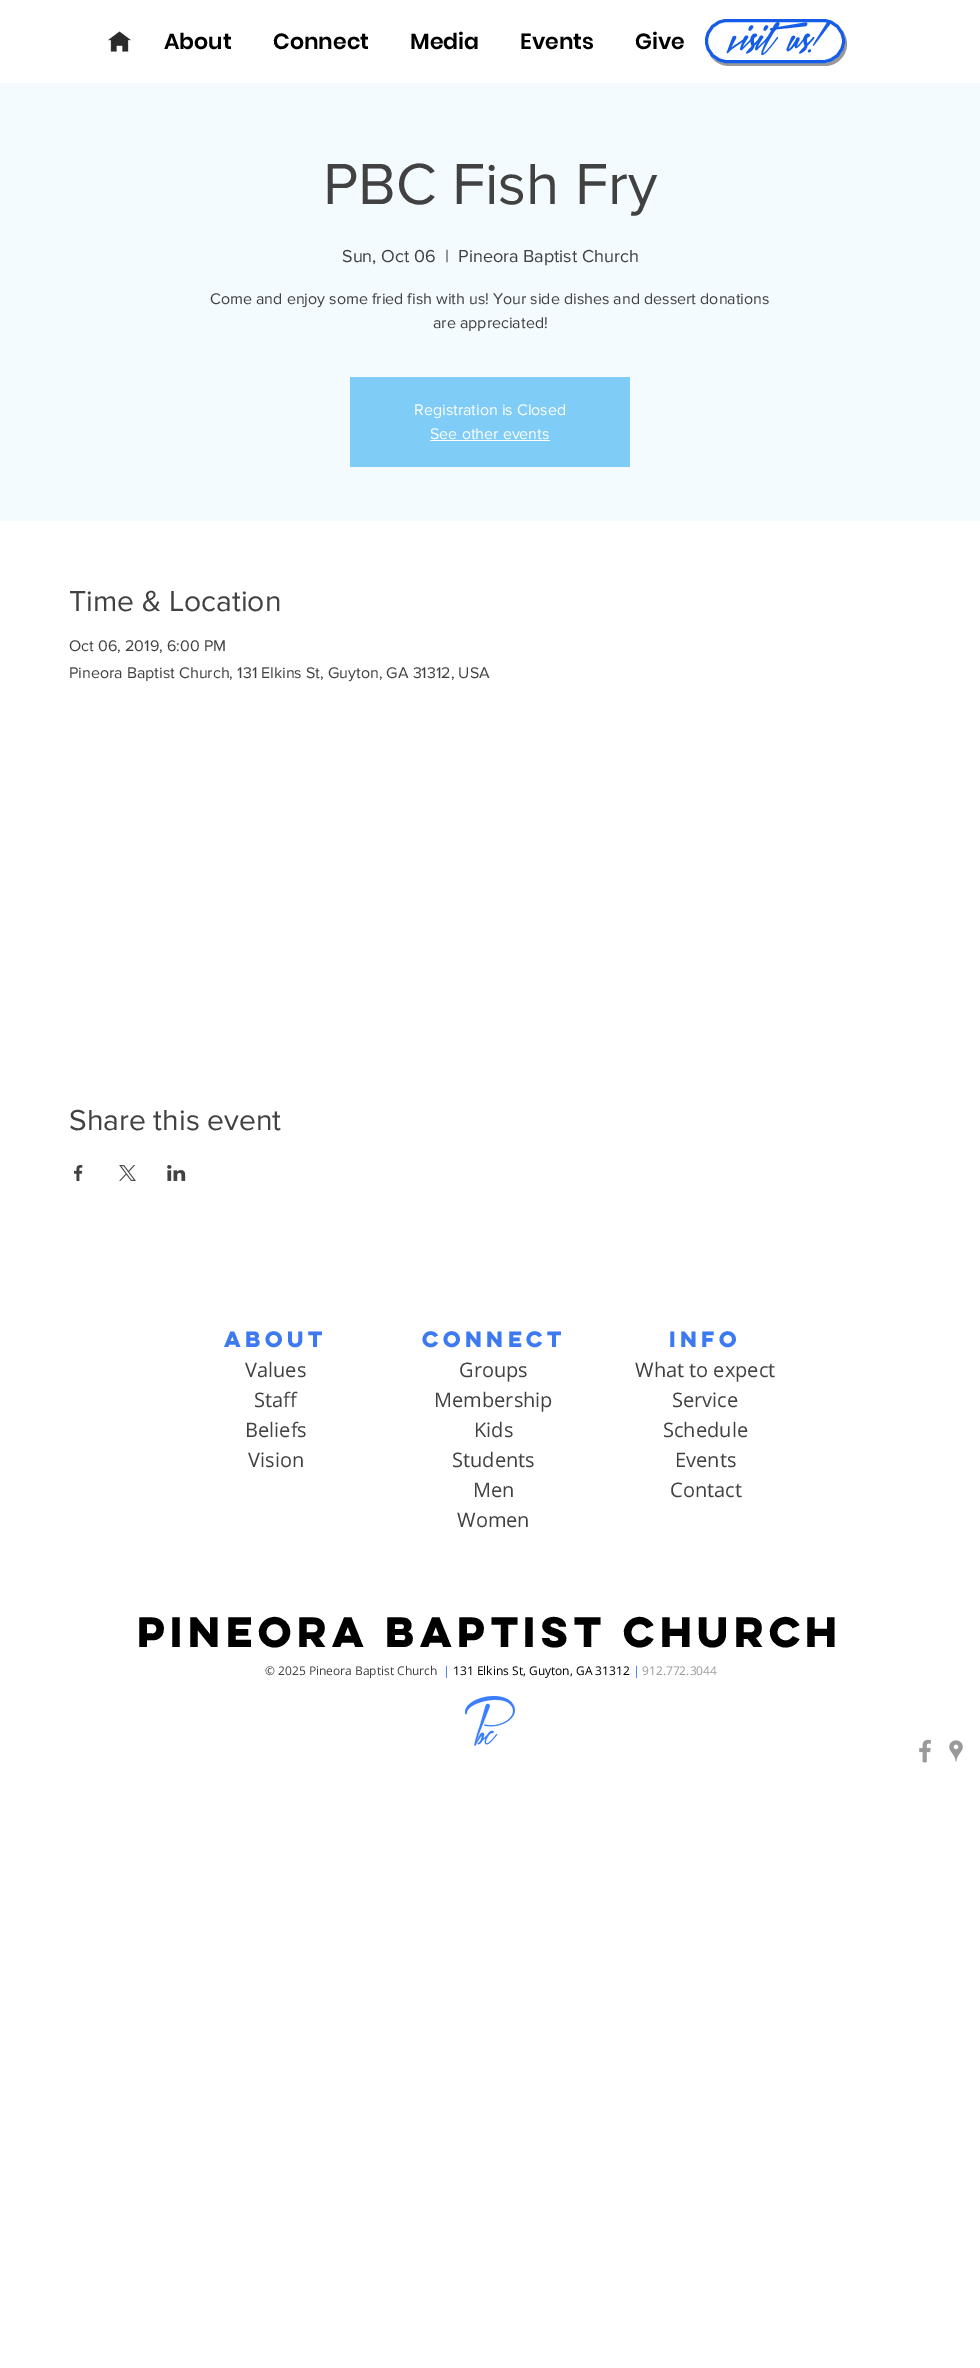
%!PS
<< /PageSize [980 2368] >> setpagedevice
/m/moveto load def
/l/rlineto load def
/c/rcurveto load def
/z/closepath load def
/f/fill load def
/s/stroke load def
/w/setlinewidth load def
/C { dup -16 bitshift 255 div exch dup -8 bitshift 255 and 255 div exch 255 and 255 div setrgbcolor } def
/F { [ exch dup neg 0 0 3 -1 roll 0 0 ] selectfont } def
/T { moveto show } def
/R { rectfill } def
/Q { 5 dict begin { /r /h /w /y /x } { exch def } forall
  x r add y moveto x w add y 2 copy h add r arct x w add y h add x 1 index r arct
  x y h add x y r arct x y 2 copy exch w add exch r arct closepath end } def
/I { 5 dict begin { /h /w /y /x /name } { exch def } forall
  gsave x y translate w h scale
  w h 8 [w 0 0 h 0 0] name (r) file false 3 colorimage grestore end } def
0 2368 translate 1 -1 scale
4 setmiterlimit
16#FFFFFF C
0 0 980 2368 R
(1.rgb) 108 31 23 21 I
/Poppins-SemiBold 22 F
16#000000 C
(About) 164 49 T
(Connect) 273 49 T
(Media) 410 49 T
(Events) 520 49 T
(Give) 635 49 T
16#999997 C
710 55 m 3 6 11 11 19 11 c 96 0 l 12 0 22 -10 22 -22 c 0 -5 -2 -10 -5 -14 c 2 4 3 7 3 11 c 0 12 -10 22 -22 22 c -96 0 l -7 0 -13 -3 -17 -8 c z f
16#155DE9 C
3 w
706.5 20.5 137 41 20.5 Q s
/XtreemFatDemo-Italic 32 F
(visit us!) 731 49 T
16#F3FBFF C
0 83 980 438 R
/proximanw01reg-Regular 60 F
16#414141 C
(PBC Fish Fry) 323 204 T
/proximanw01reg-Regular 18 F
(Sun, Oct 06) 342 262 T
(|) 445 262 T
(Pineora Baptist Church) 458 262 T
/proximanw01reg-Regular 16 F
(Come and enjoy some fried fish with us! Your side dishes and dessert donations) 210 304 T
(are appreciated!) 433 328 T
16#7FCCF7 C
350 377 280 90 R
16#FFFFFF C
(Registration is Closed) 414 415 T
(See other events) 430 439 T
430 440 120 1 R
/proximanw01reg-Regular 30 F
16#414141 C
(Time & Location) 69 611 T
/proximanw01reg-Regular 16 F
(Oct 06, 2019, 6:00 PM) 69 651 T
(Pineora Baptist Church, 131 Elkins St, Guyton, GA 31312, USA) 69 678 T
/proximanw01reg-Regular 30 F
(Share this event) 69 1130 T
(2.rgb) 74 1165 9 16 I
(3.rgb) 119 1165 17 16 I
(4.rgb) 167 1165 19 16 I
/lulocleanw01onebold-Bold 20 F
16#3D7AF2 C
(About) 224 1347 T
/OpenSans-Regular 20 F
16#414141 C
(Values) 245 1377 T
(Staff) 254 1407 T
(Beliefs) 245 1437 T
(Vision) 248 1467 T
/lulocleanw01onebold-Bold 20 F
16#3D7AF2 C
(Connect) 422 1347 T
/OpenSans-Regular 20 F
16#414141 C
(Groups) 459 1377 T
(Membership) 434 1407 T
(Kids) 474 1437 T
(Students) 452 1467 T
(Men) 473 1497 T
(Women) 457 1527 T
/lulocleanw01onebold-Bold 20 F
16#3D7AF2 C
(Info) 669 1347 T
/OpenSans-Regular 20 F
16#414141 C
(What to expect) 635 1377 T
(Service) 672 1407 T
(Schedule) 663 1437 T
(Events) 675 1467 T
(Contact) 670 1497 T
/lulocleanw01onebold-Bold 38 F
16#000000 C
137 1647 m -3 0 (PINEORA BAPTIST CHURCH) ashow
/OpenSans-Regular 12 F
16#414141 C
(© 2025 Pineora Baptist Church) 265 1675 T
16#155DE9 C
(|) 443 1675 T
16#000000 C
(131 Elkins St, Guyton, GA 31312) 453 1675 T
16#155DE9 C
(|) 633 1675 T
16#999997 C
(912.772.3044) 642 1675 T
(5.rgb) 465 1696 50 50 I
(6.rgb) 919 1739 12 24 I
(7.rgb) 949 1740 14 22 I
showpage
